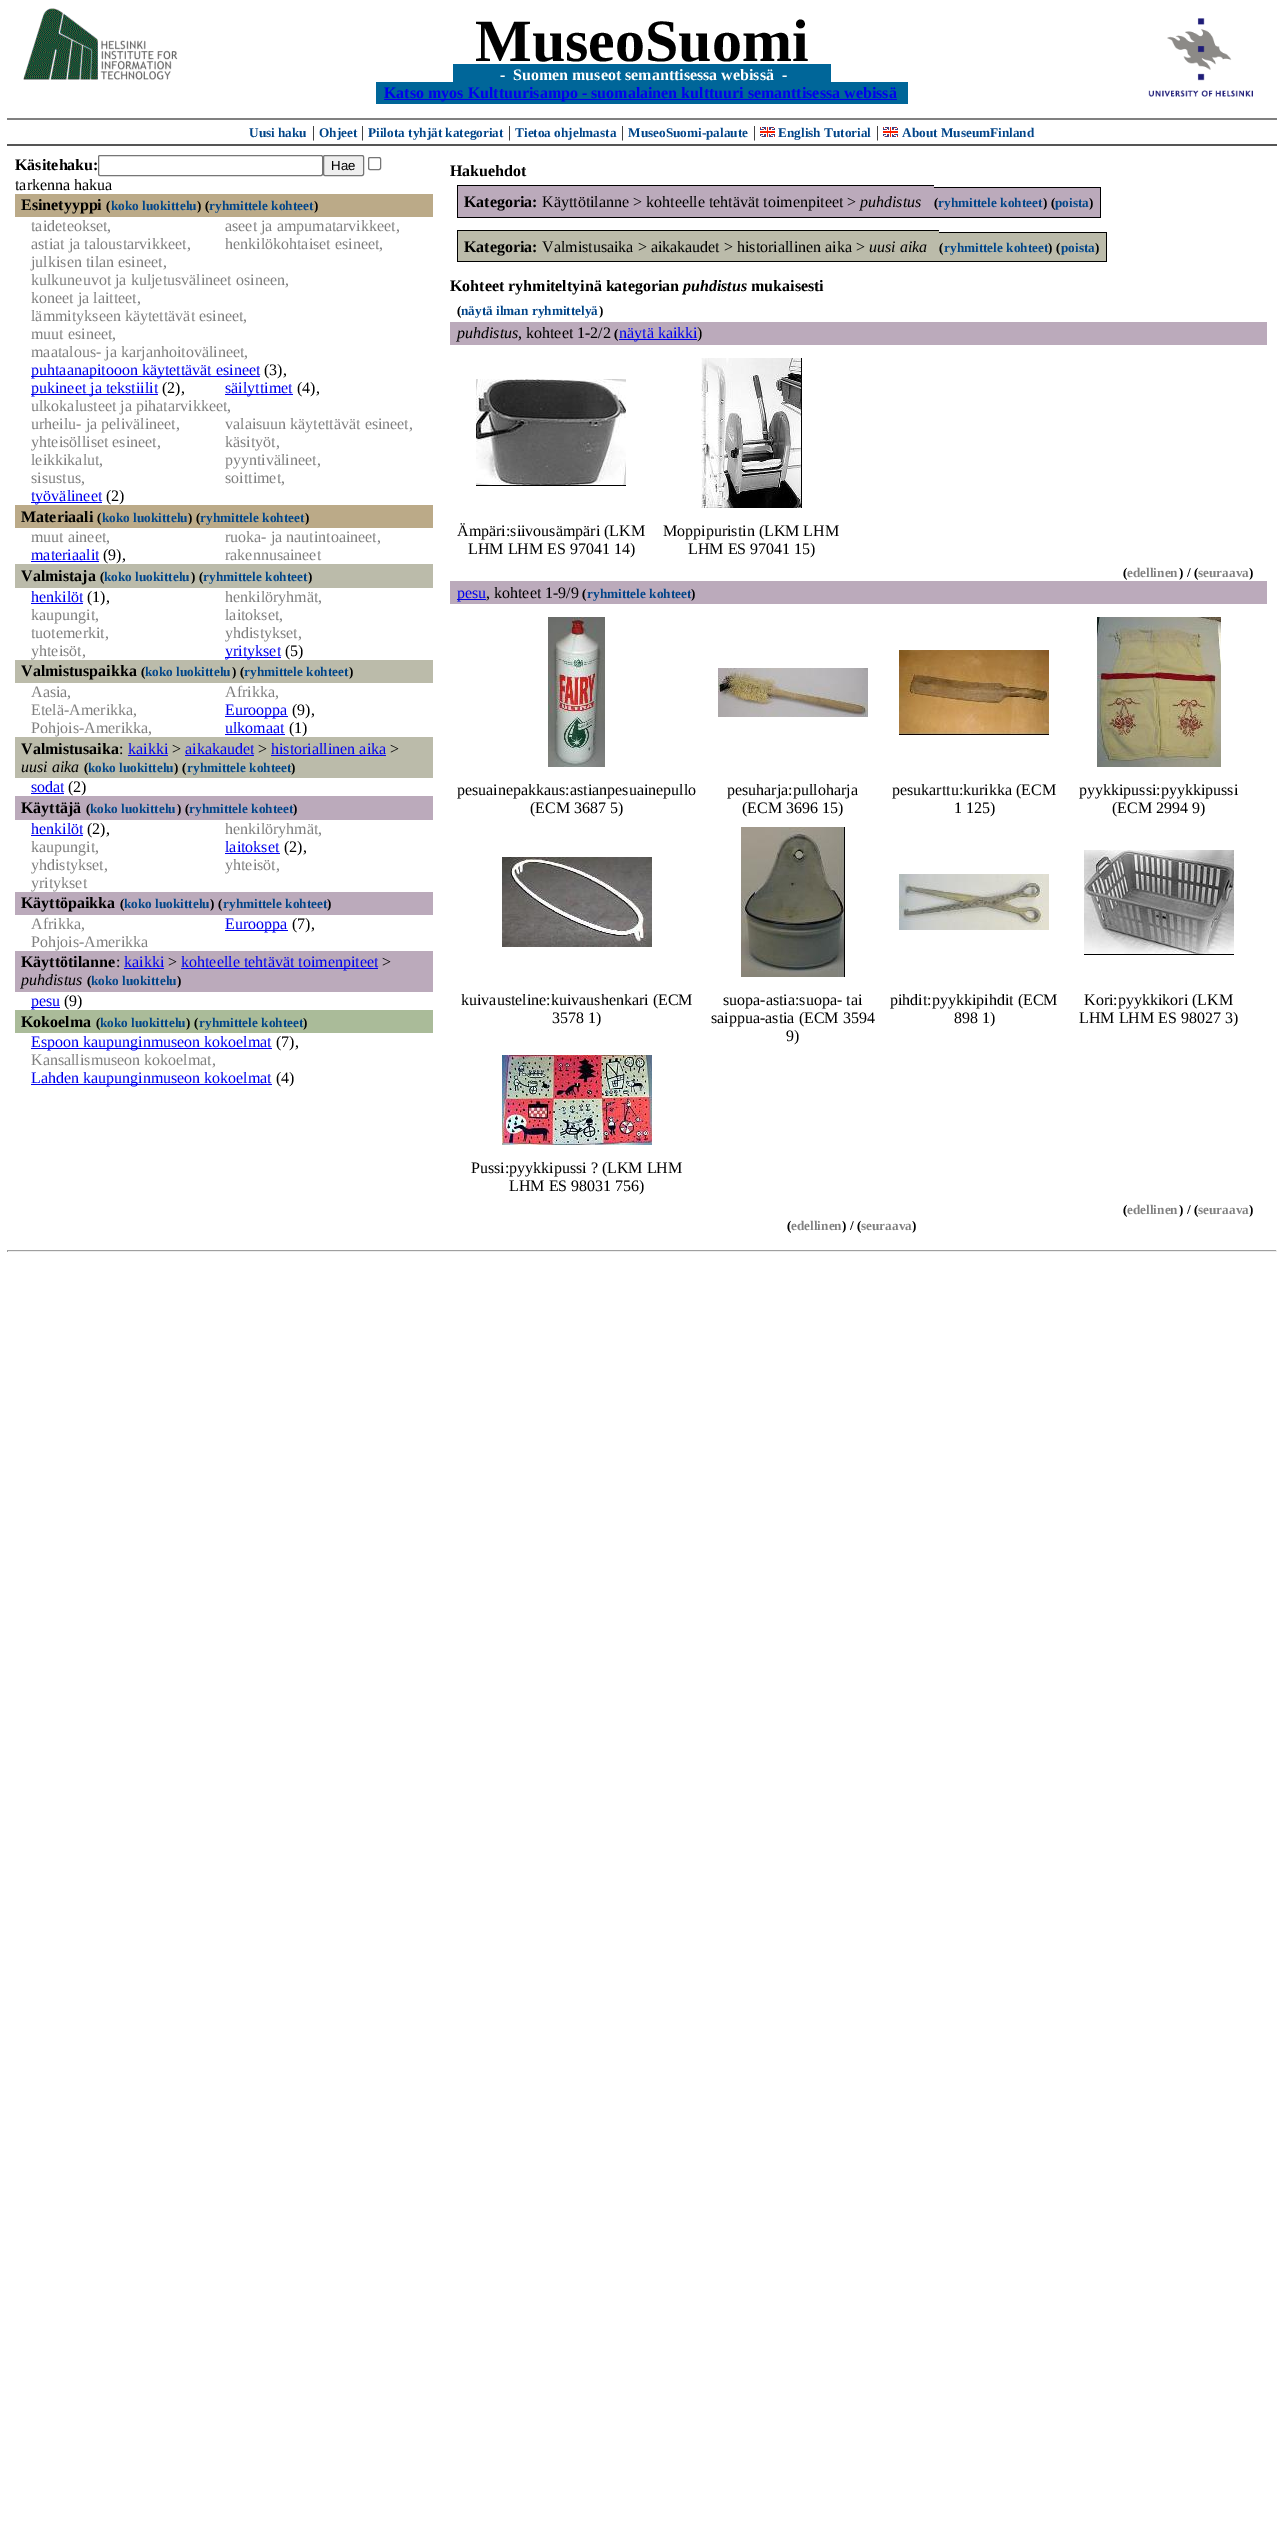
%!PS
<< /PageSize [1284 2529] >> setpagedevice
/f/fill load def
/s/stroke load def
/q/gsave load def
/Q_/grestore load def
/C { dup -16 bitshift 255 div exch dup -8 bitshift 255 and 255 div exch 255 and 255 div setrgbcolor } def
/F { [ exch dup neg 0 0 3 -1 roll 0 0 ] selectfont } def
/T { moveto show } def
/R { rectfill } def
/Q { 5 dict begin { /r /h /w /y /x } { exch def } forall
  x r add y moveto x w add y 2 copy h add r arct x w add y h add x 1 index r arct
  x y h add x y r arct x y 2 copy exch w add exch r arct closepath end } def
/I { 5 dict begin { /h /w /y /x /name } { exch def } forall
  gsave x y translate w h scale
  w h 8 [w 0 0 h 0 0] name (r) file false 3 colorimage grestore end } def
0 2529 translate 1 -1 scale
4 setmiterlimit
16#FFFFFF C
0 0 1284 2529 R
(1.rgb) 23 8 155 72 I
/LiberationSerif-Bold 60 F
16#000000 C
(MuseoSuomi) 475 61 T
(2.rgb) 1148 18 105 79 I
16#006699 C
453 64 378 18 R
/LiberationSerif-Bold 16 F
16#FFFFFF C
(-) 500 80 T
(Suomen museot semanttisessa webissä) 513 80 T
(-) 782 80 T
16#006699 C
376 82 532 22 R
16#0000EE C
384 99 513 1 R
(Katso myos Kulttuurisampo - suomalainen kulttuuri semanttisessa webissä) 384 98 T
16#808080 C
7 118 1270 2 R
16#555555 C
7 144 1270 2 R
/LiberationSerif-Bold 13.25 F
16#004488 C
(Uusi haku) 249 137 T
/LiberationSerif-Regular 16 F
16#000000 C
(|) 312 137 T
/LiberationSerif-Bold 13.25 F
16#004488 C
(Ohjeet) 319 137 T
/LiberationSerif-Regular 16 F
16#000000 C
(|) 361 137 T
/LiberationSerif-Bold 13.25 F
16#004488 C
(Piilota tyhjät kategoriat) 368 137 T
/LiberationSerif-Regular 16 F
16#000000 C
(|) 508 137 T
/LiberationSerif-Bold 13.25 F
16#004488 C
(Tietoa ohjelmasta) 515 137 T
/LiberationSerif-Regular 16 F
16#000000 C
(|) 621 137 T
/LiberationSerif-Bold 13.25 F
16#004488 C
(MuseoSuomi-palaute) 628 137 T
/LiberationSerif-Regular 16 F
16#000000 C
(|) 753 137 T
(3.rgb) 760 127 15 10 I
/LiberationSerif-Bold 13.25 F
16#004488 C
(English Tutorial) 778 137 T
/LiberationSerif-Regular 16 F
16#000000 C
(|) 876 137 T
(3.rgb) 883 127 15 10 I
/LiberationSerif-Bold 13.25 F
16#004488 C
(About MuseumFinland) 902 137 T
/LiberationSerif-Bold 16 F
16#000000 C
(Käsitehaku:) 15 170 T
16#767676 C
98.5 155.5 224 20 1.5 Q s
16#EFEFEF C
323.5 155.5 40 20 1.5 Q q f Q_
16#767676 C
s
/LiberationSans-Regular 13.25 F
16#000000 C
(Hae) 331 170 T
16#767676 C
368.5 157.5 12 12 1.5 Q s
/LiberationSerif-Regular 16 F
16#000000 C
(tarkenna hakua) 15 190 T
16#BBAA88 C
15 194 418 23 R
/LiberationSerif-Bold 16 F
16#000000 C
(Esinetyyppi) 21 210 T
/LiberationSerif-Bold 13.25 F
(\() 106 210 T
16#004488 C
(koko luokittelu) 111 210 T
16#000000 C
(\) \() 197 210 T
16#004488 C
(ryhmittele kohteet) 209 210 T
16#000000 C
(\)) 314 210 T
/LiberationSerif-Regular 16 F
16#808080 C
(taideteokset,) 31 231 T
(aseet ja ampumatarvikkeet,) 225 231 T
(astiat ja taloustarvikkeet,) 31 249 T
(henkilökohtaiset esineet,) 225 249 T
(julkisen tilan esineet,) 31 267 T
(kulkuneuvot ja kuljetusvälineet osineen,) 31 285 T
(koneet ja laitteet,) 31 303 T
(lämmitykseen käytettävät esineet,) 31 321 T
(muut esineet,) 31 339 T
(maatalous- ja karjanhoitovälineet,) 31 357 T
16#0000EE C
31 376 229 1 R
(puhtaanapitooon käytettävät esineet) 31 375 T
16#000000 C
(\(3\),) 264 375 T
16#0000EE C
31 394 127 1 R
(pukineet ja tekstiilit) 31 393 T
16#000000 C
(\(2\),) 162 393 T
16#0000EE C
225 394 68 1 R
(säilyttimet) 225 393 T
16#000000 C
(\(4\),) 297 393 T
16#808080 C
(ulkokalusteet ja pihatarvikkeet,) 31 411 T
(urheilu- ja pelivälineet,) 31 429 T
(valaisuun käytettävät esineet,) 225 429 T
(yhteisölliset esineet,) 31 447 T
(käsityöt,) 225 447 T
(leikkikalut,) 31 465 T
(pyyntivälineet,) 225 465 T
(sisustus,) 31 483 T
(soittimet,) 225 483 T
16#0000EE C
31 502 71 1 R
(työvälineet) 31 501 T
16#000000 C
(\(2\)) 106 501 T
16#BBAA88 C
15 505 418 23 R
/LiberationSerif-Bold 16 F
16#000000 C
(Materiaali) 21 522 T
/LiberationSerif-Bold 13.25 F
(\() 97 522 T
16#004488 C
(koko luokittelu) 102 522 T
16#000000 C
(\) \() 188 522 T
16#004488 C
(ryhmittele kohteet) 200 522 T
16#000000 C
(\)) 305 522 T
/LiberationSerif-Regular 16 F
16#808080 C
(muut aineet,) 31 542 T
(ruoka- ja nautintoaineet,) 225 542 T
16#0000EE C
(materiaalit) 31 560 T
31 561 68 1 R
16#000000 C
(\(9\),) 103 560 T
16#808080 C
(rakennusaineet) 225 560 T
16#BBBBAA C
15 564 418 24 R
/LiberationSerif-Bold 16 F
16#000000 C
(Valmistaja) 21 581 T
/LiberationSerif-Bold 13.25 F
(\() 100 581 T
16#004488 C
(koko luokittelu) 104 581 T
16#000000 C
(\) \() 191 581 T
16#004488 C
(ryhmittele kohteet) 203 581 T
16#000000 C
(\)) 308 581 T
/LiberationSerif-Regular 16 F
16#0000EE C
(henkilöt) 31 602 T
31 603 52 1 R
16#000000 C
(\(1\),) 87 602 T
16#808080 C
(henkilöryhmät,) 225 602 T
(kaupungit,) 31 620 T
(laitokset,) 225 620 T
(tuotemerkit,) 31 638 T
(yhdistykset,) 225 638 T
(yhteisöt,) 31 656 T
16#0000EE C
225 657 56 1 R
(yritykset) 225 656 T
16#000000 C
(\(5\)) 285 656 T
16#BBBBAA C
15 660 418 23 R
/LiberationSerif-Bold 16 F
16#000000 C
(Valmistuspaikka) 21 676 T
/LiberationSerif-Bold 13.25 F
(\() 141 676 T
16#004488 C
(koko luokittelu) 145 676 T
16#000000 C
(\) \() 232 676 T
16#004488 C
(ryhmittele kohteet) 244 676 T
16#000000 C
(\)) 349 676 T
/LiberationSerif-Regular 16 F
16#808080 C
(Aasia,) 31 697 T
(Afrikka,) 225 697 T
(Etelä-Amerikka,) 31 715 T
16#0000EE C
225 716 63 1 R
(Eurooppa) 225 715 T
16#000000 C
(\(9\),) 292 715 T
16#808080 C
(Pohjois-Amerikka,) 31 733 T
16#0000EE C
(ulkomaat) 225 733 T
225 734 60 1 R
16#000000 C
(\(1\)) 289 733 T
16#BBBBAA C
15 737 418 41 R
/LiberationSerif-Bold 16 F
16#000000 C
(Valmistusaika) 21 754 T
/LiberationSerif-Regular 16 F
(:) 119 754 T
16#0000EE C
(kaikki) 128 754 T
128 755 40 1 R
16#000000 C
(>) 172 754 T
16#0000EE C
(aikakaudet) 185 754 T
185 755 69 1 R
16#000000 C
(>) 258 754 T
16#0000EE C
(historiallinen aika) 271 754 T
271 755 115 1 R
16#000000 C
(>) 390 754 T
/LiberationSerif-Italic 16 F
(uusi aika) 21 772 T
/LiberationSerif-Bold 13.25 F
(\() 84 772 T
16#004488 C
(koko luokittelu) 88 772 T
16#000000 C
(\) \() 174 772 T
16#004488 C
(ryhmittele kohteet) 187 772 T
16#000000 C
(\)) 291 772 T
/LiberationSerif-Regular 16 F
16#0000EE C
(sodat) 31 792 T
31 793 33 1 R
16#000000 C
(\(2\)) 68 792 T
16#BBAABB C
15 796 418 24 R
/LiberationSerif-Bold 16 F
16#000000 C
(Käyttäjä) 21 813 T
/LiberationSerif-Bold 13.25 F
(\() 86 813 T
16#004488 C
(koko luokittelu) 90 813 T
16#000000 C
(\) \() 177 813 T
16#004488 C
(ryhmittele kohteet) 189 813 T
16#000000 C
(\)) 293 813 T
/LiberationSerif-Regular 16 F
16#0000EE C
(henkilöt) 31 834 T
31 835 52 1 R
16#000000 C
(\(2\),) 87 834 T
16#808080 C
(henkilöryhmät,) 225 834 T
(kaupungit,) 31 852 T
16#0000EE C
(laitokset) 225 852 T
225 853 55 1 R
16#000000 C
(\(2\),) 284 852 T
16#808080 C
(yhdistykset,) 31 870 T
(yhteisöt,) 225 870 T
(yritykset) 31 888 T
16#BBAABB C
15 892 418 23 R
/LiberationSerif-Bold 16 F
16#000000 C
(Käyttöpaikka) 21 908 T
/LiberationSerif-Bold 13.25 F
(\() 120 908 T
16#004488 C
(koko luokittelu) 124 908 T
16#000000 C
(\) \() 210 908 T
16#004488 C
(ryhmittele kohteet) 223 908 T
16#000000 C
(\)) 327 908 T
/LiberationSerif-Regular 16 F
16#808080 C
(Afrikka,) 31 929 T
16#0000EE C
225 930 63 1 R
(Eurooppa) 225 929 T
16#000000 C
(\(7\),) 292 929 T
16#808080 C
(Pohjois-Amerikka) 31 947 T
16#BBAABB C
15 951 418 41 R
/LiberationSerif-Bold 16 F
16#000000 C
(Käyttötilanne) 21 967 T
/LiberationSerif-Regular 16 F
(:) 116 967 T
16#0000EE C
(kaikki) 124 967 T
124 968 40 1 R
16#000000 C
(>) 168 967 T
16#0000EE C
181 968 197 1 R
(kohteelle tehtävät toimenpiteet) 181 967 T
16#000000 C
(>) 382 967 T
/LiberationSerif-Italic 16 F
(puhdistus) 21 985 T
/LiberationSerif-Bold 13.25 F
(\() 87 985 T
16#004488 C
(koko luokittelu) 91 985 T
16#000000 C
(\)) 177 985 T
16#0000EE C
31 1007 29 1 R
/LiberationSerif-Regular 16 F
(pesu) 31 1006 T
16#000000 C
(\(9\)) 64 1006 T
16#AABB99 C
15 1010 418 23 R
/LiberationSerif-Bold 16 F
16#000000 C
(Kokoelma) 21 1027 T
/LiberationSerif-Bold 13.25 F
(\() 96 1027 T
16#004488 C
(koko luokittelu) 100 1027 T
16#000000 C
(\) \() 186 1027 T
16#004488 C
(ryhmittele kohteet) 199 1027 T
16#000000 C
(\)) 303 1027 T
16#0000EE C
31 1048 241 1 R
/LiberationSerif-Regular 16 F
(Espoon kaupunginmuseon kokoelmat) 31 1047 T
16#000000 C
(\(7\),) 276 1047 T
16#808080 C
(Kansallismuseon kokoelmat,) 31 1065 T
16#0000EE C
31 1084 241 1 R
(Lahden kaupunginmuseon kokoelmat) 31 1083 T
16#000000 C
(\(4\)) 276 1083 T
/LiberationSerif-Bold 16 F
(Hakuehdot) 450 176 T
16#BBAABB C
458 186 476 31 R
16#000000 C
(Kategoria:) 464 207 T
457 185 477 1 R
457 217 477 1 R
457 185 1 33 R
/LiberationSerif-Regular 16 F
(Käyttötilanne > kohteelle tehtävät toimenpiteet >) 542 207 T
/LiberationSerif-Italic 16 F
(puhdistus) 860 207 T
16#BBAABB C
934 187 4 31 R
/LiberationSerif-Bold 13.25 F
16#000000 C
(\() 934 207 T
934 187 109 1 R
934 217 109 1 R
16#BBAABB C
938 188 105 29 R
16#004488 C
(ryhmittele kohteet) 938 207 T
16#BBAABB C
1043 187 12 31 R
16#000000 C
1043 187 58 1 R
1043 217 46 1 R
(\) \() 1043 207 T
16#BBAABB C
1055 188 45 29 R
16#004488 C
(poista) 1055 207 T
16#000000 C
1100 187 1 31 R
1089 217 12 1 R
(\)) 1089 207 T
16#BBBBAA C
458 231 481 30 R
/LiberationSerif-Bold 16 F
16#000000 C
(Kategoria:) 464 252 T
457 230 482 1 R
457 261 482 1 R
457 230 1 32 R
/LiberationSerif-Regular 16 F
(Valmistusaika > aikakaudet > historiallinen aika >) 542 252 T
/LiberationSerif-Italic 16 F
(uusi aika) 869 252 T
16#BBBBAA C
939 232 5 30 R
/LiberationSerif-Bold 13.25 F
16#000000 C
(\() 939 252 T
939 232 109 1 R
939 261 109 1 R
16#BBBBAA C
944 233 104 28 R
1048 232 13 30 R
16#004488 C
(ryhmittele kohteet) 944 252 T
16#000000 C
1048 232 59 1 R
1048 261 47 1 R
(\) \() 1048 252 T
16#BBBBAA C
1061 233 45 28 R
16#004488 C
(poista) 1061 252 T
16#000000 C
1106 232 1 30 R
1095 261 12 1 R
(\)) 1095 252 T
/LiberationSerif-Bold 16 F
(Kohteet ryhmiteltyinä kategorian) 450 291 T
/LiberationSerif-BoldItalic 16 F
(puhdistus) 683 291 T
/LiberationSerif-Bold 16 F
(mukaisesti) 751 291 T
/LiberationSerif-Bold 13.25 F
(\() 457 315 T
16#004488 C
(näytä ilman ryhmittelyä) 461 315 T
16#000000 C
(\)) 599 315 T
16#BBAABB C
450 322 817 23 R
/LiberationSerif-Italic 16 F
16#000000 C
(puhdistus) 457 338 T
/LiberationSerif-Regular 16 F
(, kohteet 1-2/2) 518 338 T
/LiberationSerif-Bold 13.25 F
(\() 614 338 T
16#0000EE C
619 339 78 1 R
/LiberationSerif-Regular 16 F
(näytä kaikki) 619 338 T
16#000000 C
(\)) 697 338 T
(4.rgb) 476 379 150 107 I
(5.rgb) 701 358 101 150 I
(Ämpäri:siivousämpäri \(LKM) 457 536 T
(LHM LHM ES 97041 14\)) 468 554 T
(Moppipuristin \(LKM LHM) 663 536 T
(LHM ES 97041 15\)) 688 554 T
/LiberationSerif-Bold 13.25 F
(\() 1123 577 T
16#808080 C
(edellinen) 1127 577 T
16#000000 C
(\) / \() 1179 577 T
16#808080 C
(seuraava) 1198 577 T
16#000000 C
(\)) 1249 577 T
16#BBAABB C
450 581 817 23 R
16#0000EE C
457 599 29 1 R
/LiberationSerif-Regular 16 F
(pesu) 457 598 T
16#000000 C
(, kohteet 1-9/9) 486 598 T
/LiberationSerif-Bold 13.25 F
(\() 582 598 T
16#004488 C
(ryhmittele kohteet) 587 598 T
16#000000 C
(\)) 691 598 T
(6.rgb) 548 617 57 150 I
(7.rgb) 718 668 150 49 I
(8.rgb) 899 650 150 85 I
(9.rgb) 1097 617 124 150 I
/LiberationSerif-Regular 16 F
(pesuainepakkaus:astianpesuainepullo) 457 795 T
(\(ECM 3687 5\)) 530 813 T
(pesuharja:pulloharja) 727 795 T
(\(ECM 3696 15\)) 742 813 T
(pesukarttu:kurikka \(ECM) 892 795 T
(1 125\)) 954 813 T
(pyykkipussi:pyykkipussi) 1079 795 T
(\(ECM 2994 9\)) 1112 813 T
(10.rgb) 502 857 150 90 I
(11.rgb) 741 827 104 150 I
(12.rgb) 899 874 150 56 I
(13.rgb) 1084 850 150 105 I
(kuivausteline:kuivaushenkari \(ECM) 461 1005 T
(3578 1\)) 552 1023 T
(suopa-astia:suopa- tai) 723 1005 T
(saippua-astia \(ECM 3594) 711 1023 T
(9\)) 786 1041 T
(pihdit:pyykkipihdit \(ECM) 890 1005 T
(898 1\)) 954 1023 T
(Kori:pyykkikori \(LKM) 1084 1005 T
(LHM LHM ES 98027 3\)) 1079 1023 T
(14.rgb) 502 1055 150 90 I
(Pussi:pyykkipussi ? \(LKM LHM) 471 1173 T
(LHM ES 98031 756\)) 509 1191 T
/LiberationSerif-Bold 13.25 F
(\() 1123 1214 T
16#808080 C
(edellinen) 1127 1214 T
16#000000 C
(\) / \() 1179 1214 T
16#808080 C
(seuraava) 1198 1214 T
16#000000 C
(\)) 1249 1214 T
(\() 787 1230 T
16#808080 C
(edellinen) 791 1230 T
16#000000 C
(\) / \() 842 1230 T
16#808080 C
(seuraava) 861 1230 T
16#000000 C
(\)) 912 1230 T
16#9F9F9F C
7 1250 1270 1 R
16#EEEEEE C
1276 1250 1 2 R
7 1251 1270 1 R
16#9F9F9F C
7 1250 1 2 R
showpage
